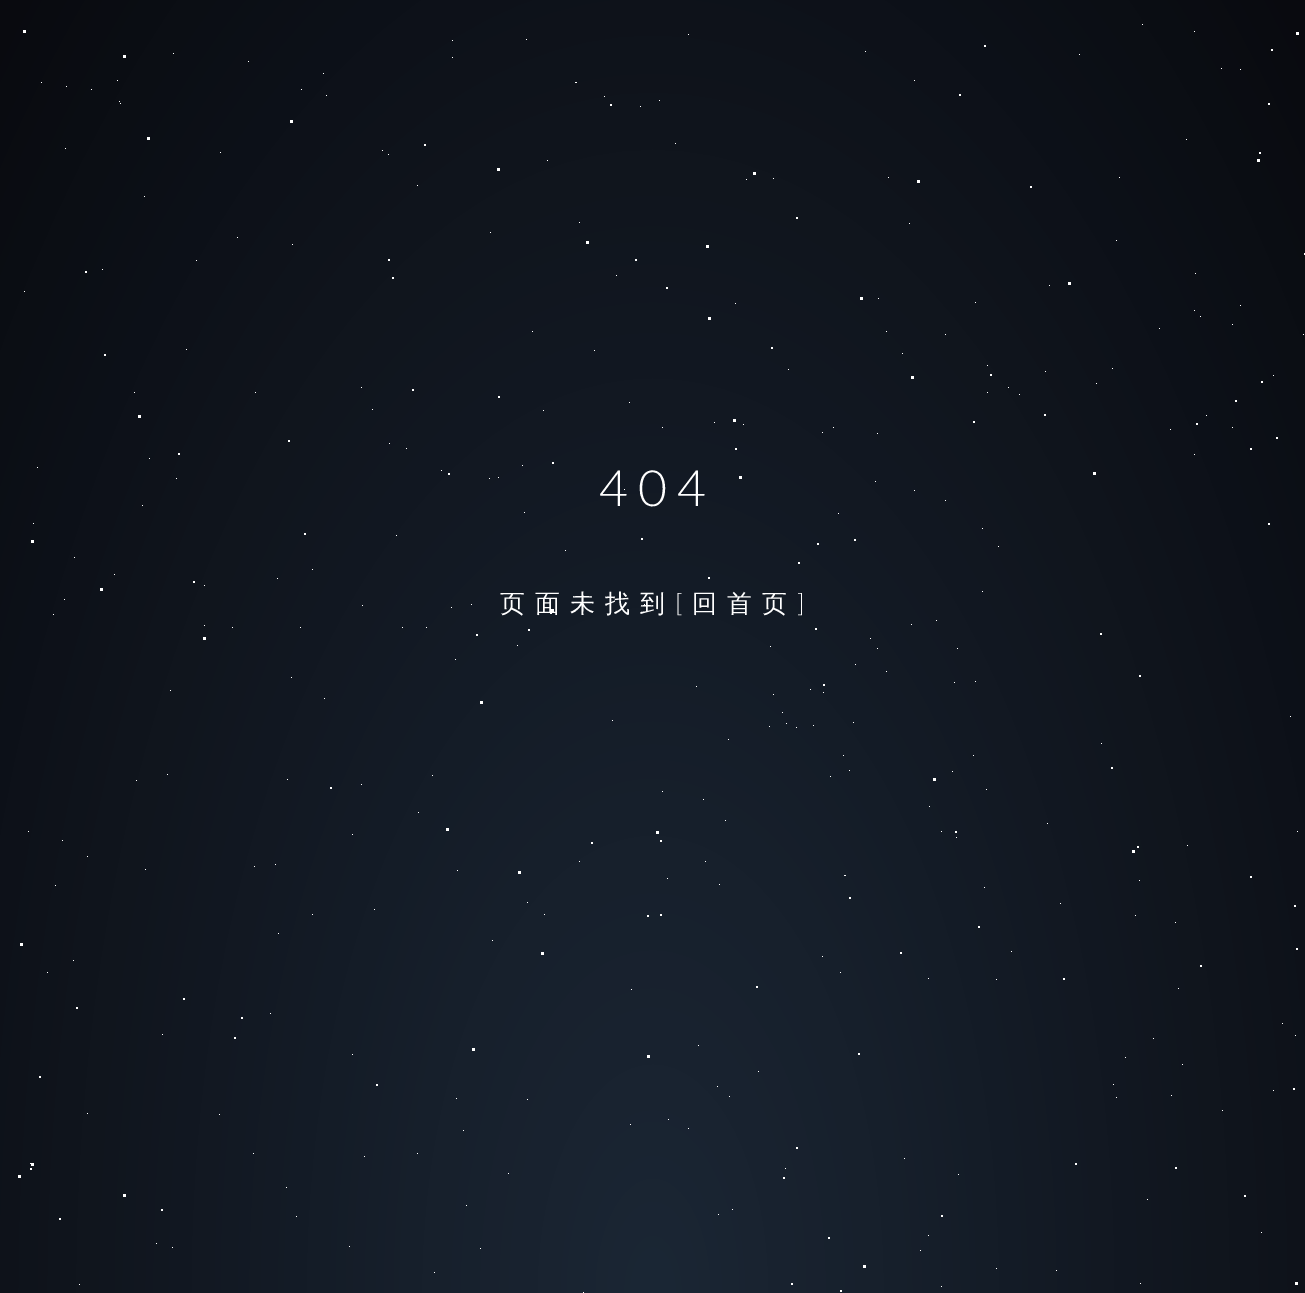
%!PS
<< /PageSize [1305 1293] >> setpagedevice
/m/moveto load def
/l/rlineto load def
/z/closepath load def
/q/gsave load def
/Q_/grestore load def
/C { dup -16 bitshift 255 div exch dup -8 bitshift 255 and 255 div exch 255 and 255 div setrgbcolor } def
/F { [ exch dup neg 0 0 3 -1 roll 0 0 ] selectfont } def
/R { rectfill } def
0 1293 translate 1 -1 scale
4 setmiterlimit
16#FFFFFF C
0 0 1305 1293 R
q 0 0 m 1305 0 l 0 1293 l -1305 0 l z clip newpath 653 1293 translate 923 1829 scale
<< /ShadingType 3 /ColorSpace /DeviceRGB /Coords [0 0 0 0 0 1] /Extend [true true] /Function << /FunctionType 2 /Domain [0 1] /C0 [.106 .153 .208] /C1 [.035 .039 .059] /N 1 >> >> shfill Q_
275 864 1 1 R
911 624 1 1 R
186 349 1 1 R
714 422 1 1 R
973 755 1 1 R
770 646 1 1 R
1135 915 1 1 R
822 432 1 1 R
1261 1232 1 1 R
782 712 1 1 R
1140 1283 1 1 R
301 89 1 1 R
1303 334 1 1 R
87 856 1 1 R
406 448 1 1 R
1060 903 1 1 R
703 799 1 1 R
33 523 1 1 R
1045 371 1 1 R
698 1045 1 1 R
579 222 1 1 R
254 866 1 1 R
844 875 2 1 R
364 1156 1 1 R
984 887 1 1 R
914 80 1 1 R
865 51 1 1 R
630 1124 1 1 R
987 392 1 1 R
982 528 1 1 R
1290 716 1 1 R
583 1292 1 1 R
688 1128 1 1 R
324 698 1 1 R
204 625 1 1 R
1170 429 1 1 R
1019 394 1 1 R
119 101 1 1 R
73 960 1 1 R
945 500 1 1 R
604 96 1 1 R
1113 1084 1 1 R
349 1246 1 1 R
277 578 1 1 R
527 1099 1 1 R
388 154 1 1 R
928 978 1 1 R
547 160 1 1 R
719 884 1 1 R
982 591 1 1 R
1139 880 1 1 R
352 834 1 1 R
1273 1090 1 1 R
696 686 1 1 R
878 298 1 1 R
1147 1199 1 1 R
372 409 1 1 R
1222 1110 1 1 R
452 57 1 1 R
904 1158 1 1 R
662 427 1 1 R
451 607 1 1 R
396 535 1 1 R
417 185 1 1 R
28 831 1 1 R
877 648 1 1 R
849 770 1 1 R
1008 387 1 1 R
543 410 1 1 R
936 620 1 1 R
1175 922 1 1 R
278 933 1 1 R
114 574 1 1 R
822 956 1 1 R
312 914 1 1 R
471 604 1 1 R
668 1119 1 1 R
24 291 1 1 R
172 1247 1 1 R
361 387 1 1 R
902 353 1 1 R
312 569 1 1 R
838 513 1 1 R
136 780 1 1 R
232 627 1 1 R
255 392 1 1 R
291 677 1 1 R
292 244 1 1 R
253 1153 1 1 R
732 1209 1 1 R
287 779 1 1 R
455 659 1 1 R
65 148 1 1 R
156 1243 1 1 R
870 638 1 1 R
909 223 1 1 R
875 481 1 1 R
1047 823 1 1 R
102 269 1 1 R
1079 54 1 1 R
1187 845 1 1 R
326 95 1 1 R
1194 31 1 1 R
1194 454 1 1 R
142 505 1 1 R
170 690 1 1 R
728 739 1 1 R
941 831 1 1 R
956 837 1 1 R
452 40 1 1 R
1153 1038 1 1 R
300 627 1 1 R
466 1205 1 1 R
382 150 1 1 R
517 645 1 1 R
196 260 1 1 R
914 490 1 1 R
1297 831 1 1 R
855 664 1 1 R
219 1114 1 1 R
1232 427 1 1 R
1049 285 1 1 R
434 1272 1 1 R
1206 415 1 1 R
362 605 1 1 R
929 806 1 1 R
624 489 1 1 R
629 402 1 1 R
743 424 1 1 R
1056 1270 1 1 R
526 39 1 1 R
705 861 1 1 R
117 80 1 1 R
941 1286 1 1 R
1101 743 1 1 R
840 972 1 1 R
954 682 1 1 R
769 726 1 1 R
612 720 1 1 R
120 103 1 1 R
843 755 1 1 R
986 789 1 1 R
176 478 1 1 R
389 443 1 1 R
786 723 1 1 R
1282 1023 1 1 R
758 1071 1 1 R
456 1098 1 1 R
659 100 1 1 R
975 302 1 1 R
1096 383 1 1 R
79 1284 1 1 R
480 1248 1 1 R
729 1096 1 1 R
418 812 1 1 R
62 840 1 1 R
1273 375 1 1 R
432 775 1 1 R
37 467 1 1 R
725 820 1 1 R
1142 24 1 1 R
987 365 1 1 R
463 1130 1 1 R
886 331 1 1 R
41 82 1 1 R
735 303 1 1 R
441 470 1 1 R
575 82 2 1 R
544 914 1 1 R
64 599 1 1 R
55 885 1 1 R
996 979 1 1 R
788 369 1 1 R
998 546 1 1 R
1159 328 1 1 R
47 972 1 1 R
374 909 1 1 R
492 940 1 1 R
813 725 1 1 R
616 275 1 1 R
958 1174 1 1 R
928 1235 1 1 R
1240 305 1 1 R
1295 1035 1 1 R
149 458 1 1 R
796 727 1 1 R
773 178 1 1 R
30 1163 1 1 R
1232 324 1 1 R
489 478 1 1 R
145 869 1 1 R
718 1214 1 1 R
996 1268 1 1 R
975 681 1 1 R
565 550 1 1 R
1195 273 1 1 R
1116 1097 1 1 R
1112 368 1 1 R
957 648 1 1 R
426 627 1 1 R
579 861 1 1 R
220 152 1 1 R
417 1153 1 1 R
66 86 1 1 R
237 237 1 1 R
1119 177 1 1 R
945 334 1 1 R
144 196 1 1 R
594 350 1 1 R
134 392 1 1 R
631 989 1 1 R
524 512 1 1 R
204 585 1 1 R
830 776 1 1 R
1125 1057 1 1 R
773 694 1 1 R
886 671 1 1 R
248 61 1 1 R
675 143 1 1 R
457 870 1 1 R
173 53 1 1 R
1171 1095 1 1 R
270 1013 1 1 R
522 465 1 1 R
74 557 1 1 R
1011 951 1 1 R
823 692 1 1 R
785 1168 1 1 R
717 1086 1 1 R
1240 69 1 1 R
87 1113 1 1 R
1182 1064 1 1 R
952 771 1 1 R
167 774 1 1 R
352 1054 1 1 R
323 73 1 1 R
162 1034 1 1 R
667 878 1 1 R
1116 240 1 1 R
527 902 1 1 R
833 427 1 1 R
53 614 1 1 R
490 232 1 1 R
1194 310 1 1 R
361 784 1 1 R
688 34 1 1 R
402 627 1 1 R
532 331 1 1 R
853 722 1 1 R
1221 68 1 1 R
662 791 1 1 R
1178 988 1 1 R
296 1216 1 1 R
508 1173 1 1 R
888 177 1 1 R
1200 316 1 1 R
810 689 1 1 R
286 1187 1 1 R
1186 139 1 1 R
644 604 1 1 R
640 106 1 1 R
91 89 1 1 R
746 179 1 1 R
877 433 1 1 R
498 477 1 1 R
920 1250 1 1 R
472 1048 3 3 R
917 180 3 3 R
739 476 3 3 R
1295 1282 3 3 R
147 137 3 3 R
733 419 3 3 R
138 415 3 3 R
203 637 3 3 R
911 376 3 3 R
933 778 3 3 R
586 241 3 3 R
31 540 3 3 R
1257 159 3 3 R
541 952 3 3 R
446 828 3 3 R
18 1175 3 3 R
31 1163 3 3 R
480 701 3 3 R
1093 472 3 3 R
863 1265 3 3 R
753 172 3 3 R
23 30 3 3 R
708 317 3 3 R
518 871 3 3 R
860 297 3 3 R
1132 850 3 3 R
551 609 3 3 R
290 120 3 3 R
123 55 3 3 R
497 168 3 3 R
20 943 3 3 R
656 831 3 3 R
647 1055 3 3 R
123 1194 3 3 R
1296 32 3 3 R
100 588 3 3 R
1068 282 3 3 R
706 245 3 3 R
978 926 2 2 R
708 577 2 2 R
849 897 2 2 R
330 787 2 2 R
288 440 2 2 R
959 94 2 2 R
76 1007 2 2 R
635 259 2 2 R
840 1290 2 2 R
641 538 2 2 R
1196 423 2 2 R
1137 846 2 2 R
610 104 2 2 R
1063 978 2 2 R
647 915 2 2 R
1271 49 2 2 R
1250 448 2 2 R
984 45 2 2 R
900 952 2 2 R
241 1017 2 2 R
666 287 2 2 R
591 842 2 2 R
1235 400 2 2 R
552 462 2 2 R
756 986 2 2 R
388 259 2 2 R
796 217 2 2 R
828 1237 2 2 R
823 684 2 2 R
376 1084 2 2 R
1200 965 2 2 R
783 1177 2 2 R
973 421 2 2 R
771 347 2 2 R
1296 948 2 2 R
39 1076 2 2 R
1294 905 2 2 R
1244 1195 2 2 R
1259 152 2 2 R
498 396 2 2 R
528 629 2 2 R
1261 381 2 2 R
412 389 2 2 R
1293 1088 2 2 R
1044 414 2 2 R
1100 633 2 2 R
660 840 2 2 R
1250 876 2 2 R
796 1147 2 2 R
1276 437 2 2 R
104 354 2 2 R
392 277 2 2 R
955 831 2 2 R
660 914 2 2 R
1268 103 2 2 R
1304 253 1 2 R
791 1283 2 2 R
59 1218 2 2 R
448 473 2 2 R
178 453 2 2 R
858 1053 2 2 R
183 998 2 2 R
815 628 2 2 R
1030 186 2 2 R
735 448 2 2 R
817 543 2 2 R
990 374 2 2 R
550 612 2 2 R
304 533 2 2 R
424 144 2 2 R
1139 675 2 2 R
854 539 2 2 R
193 581 2 2 R
234 1037 2 2 R
1111 767 2 2 R
798 562 2 2 R
1175 1167 2 2 R
1268 523 2 2 R
161 1209 2 2 R
476 634 2 2 R
1075 1163 2 2 R
941 1215 2 2 R
30 1168 2 2 R
85 271 2 2 R
/Lato-Light 50 F
599 506 m 10 0 (404) ashow
/WenQuanYiZenHei-Medium 25 F
500 612 m 10 0 (页面未找到 回首页) ashow
/Lato-Light 25 F
675 612 m 10 0 ([) ashow
797 612 m 10 0 (]) ashow
showpage
